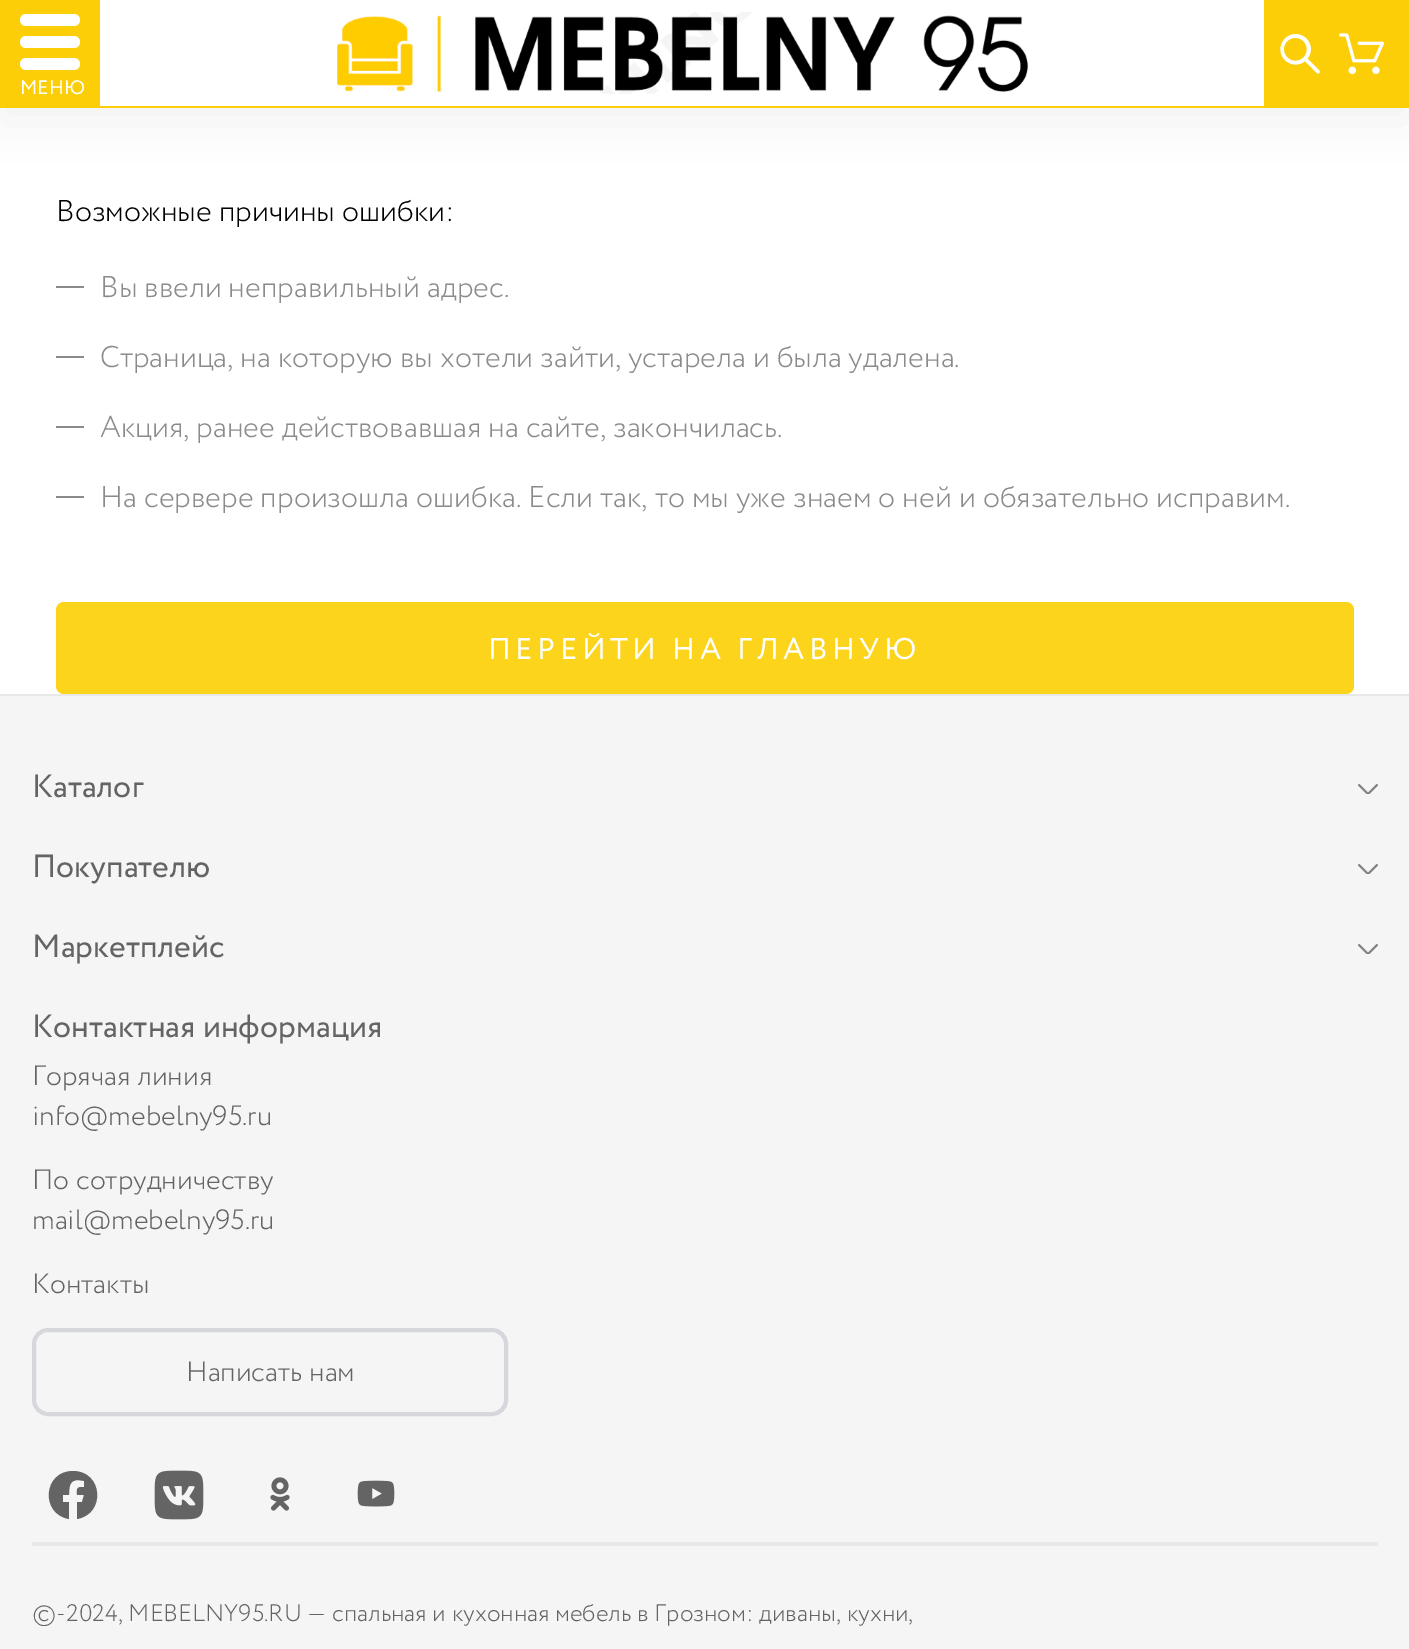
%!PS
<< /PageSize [1409 1649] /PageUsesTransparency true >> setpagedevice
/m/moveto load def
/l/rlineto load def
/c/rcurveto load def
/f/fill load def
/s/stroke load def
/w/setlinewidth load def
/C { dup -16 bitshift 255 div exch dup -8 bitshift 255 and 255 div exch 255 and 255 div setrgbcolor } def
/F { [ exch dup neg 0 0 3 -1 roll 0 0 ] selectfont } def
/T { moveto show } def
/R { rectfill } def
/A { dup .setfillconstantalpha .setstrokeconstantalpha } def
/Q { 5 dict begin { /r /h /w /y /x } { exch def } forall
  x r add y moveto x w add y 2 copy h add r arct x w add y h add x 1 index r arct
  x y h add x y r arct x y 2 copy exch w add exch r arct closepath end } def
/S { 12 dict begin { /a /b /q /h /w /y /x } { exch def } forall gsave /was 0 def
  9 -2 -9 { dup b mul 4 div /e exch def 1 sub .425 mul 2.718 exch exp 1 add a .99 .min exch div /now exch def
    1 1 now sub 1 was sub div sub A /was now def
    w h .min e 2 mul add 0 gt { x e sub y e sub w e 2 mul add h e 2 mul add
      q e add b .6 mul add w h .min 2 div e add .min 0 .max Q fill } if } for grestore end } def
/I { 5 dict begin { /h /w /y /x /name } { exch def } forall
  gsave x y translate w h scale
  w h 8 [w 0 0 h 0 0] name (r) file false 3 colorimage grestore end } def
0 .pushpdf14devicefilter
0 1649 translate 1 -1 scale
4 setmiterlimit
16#FFFFFF C
0 0 1409 1649 R
16#000000 C
0 14 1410 108 0 24 .05 S
16#FBCE07 C
0 0 1409 108 R
16#FFFFFF C
100 0 1164 106 R
(1.rgb) 337 12 692 82 I
(2.rgb) 1280 34 40 40 I
(3.rgb) 1339 33 45 42 I
20 36 60 12 6 Q f
20 14 60 12 6 Q f
20 58 60 12 6 Q f
/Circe-Regular 19.5 F
(МЕНЮ) 20 94 T
/Circe-Light 30 F
16#000000 C
(Возможные причины ошибки:) 56 221 T
16#8B8B8B C
56 286 28 2 R
(Вы ввели неправильный адрес.) 100 297 T
56 356 28 2 R
(Страница, на которую вы хотели зайти, устарела и была удалена.) 100 367 T
56 426 28 2 R
(Акция, ранее действовавшая на сайте, закончилась.) 100 437 T
56 496 28 2 R
(На сервере произошла ошибка. Если так, то мы уже знаем о ней и обязательно исправим.) 100 507 T
16#FCD41C C
56 602 1298 92 8 Q f
/Circe-Regular 30 F
16#FFFFFF C
488 659 m 4.6 0 (ПЕРЕЙТИ НА ГЛАВНУЮ) ashow
16#F5F5F5 C
0 696 1409 953 R
16#E8E8E8 C
0 694 1409 2 R
32 1542 1346 4 R
/Circe-Regular 32 F
16#646464 C
(Каталог) 32 797 T
(4.rgb) 1358 784 20 10 I
(Покупателю) 32 877 T
(4.rgb) 1358 864 20 10 I
(Маркетплейс) 32 957 T
(4.rgb) 1358 944 20 10 I
(Контактная информация) 32 1037 T
/Circe-Light 28 F
(Горячая линия) 32 1085 T
(info@mebelny95.ru) 32 1125 T
(По сотрудничеству) 32 1189 T
(mail@mebelny95.ru) 32 1229 T
(Контакты) 32 1293 T
16#D5D7DC C
4 w
34 1330 472 84 14 Q s
16#646464 C
(Написать нам) 186 1381 T
73 1471 m -30 0 -33 43 -4 48 c 0 -17 l -6 0 l 0 -7 l 6 0 l 0 -12 2 -17 15 -14 c 0 6 l -8 0 -7 1 -7 8 c 7 0 l -2 7 l -5 0 l 0 17 l 29 -5 26 -48 -4 -48 c f
(5.rgb) 154 1470 50 50 I
(6.rgb) 270 1477 20 34 I
(7.rgb) 357 1480 38 27 I
/Circe-Light 24 F
(©-2024, MEBELNY95.RU — спальная и кухонная мебель в Грозном: диваны, кухни,) 32 1621 T
.poppdf14devicefilter showpage
